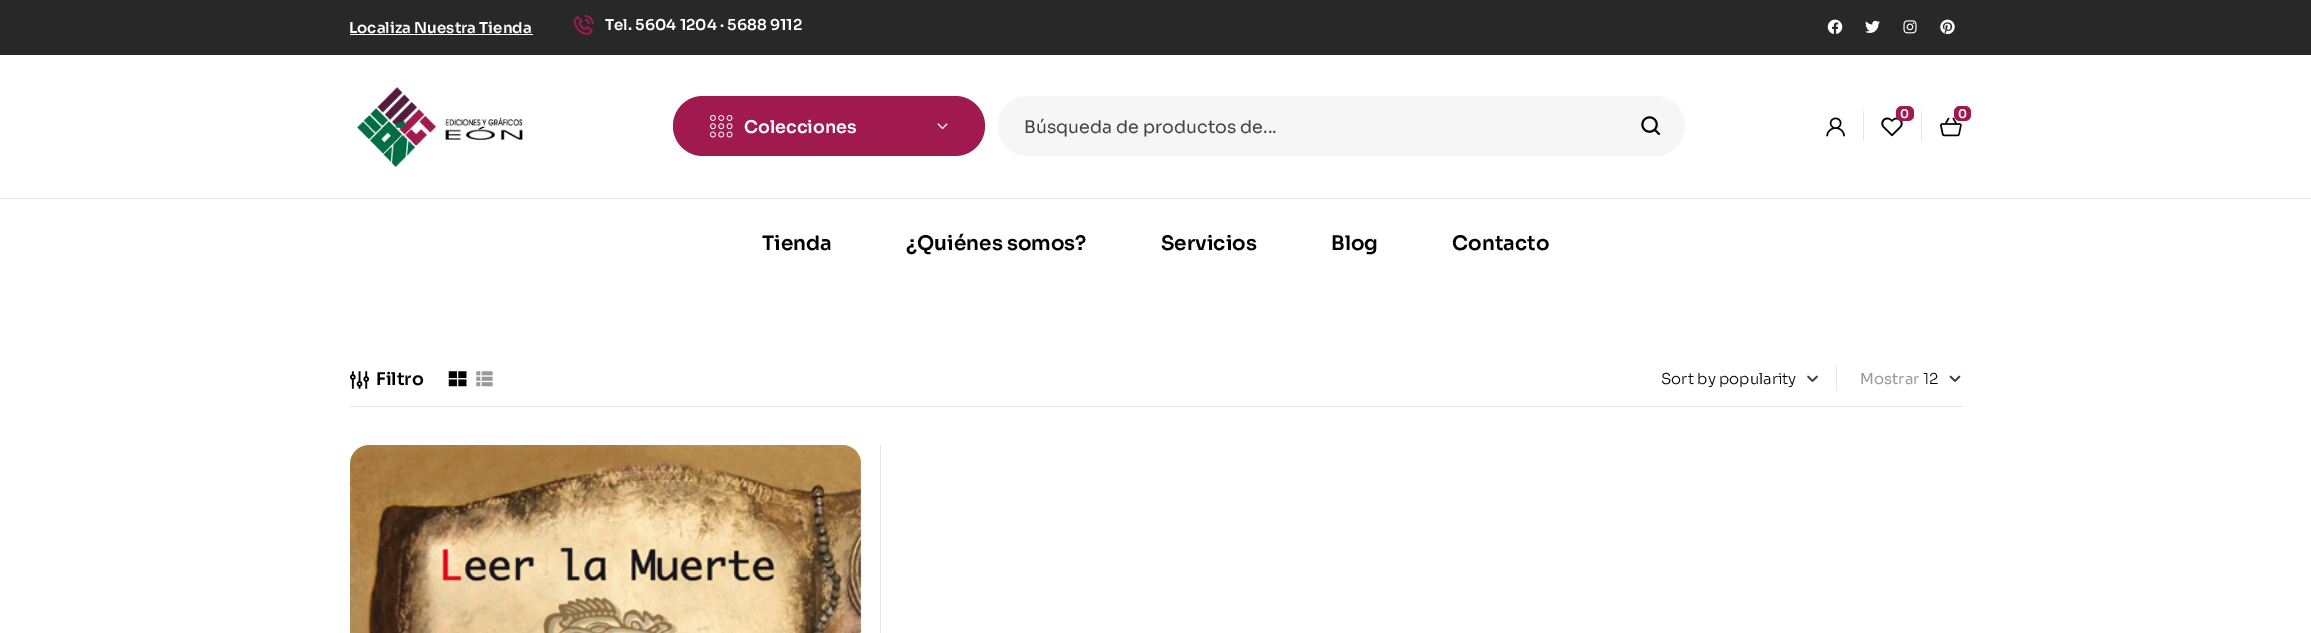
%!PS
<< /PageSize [2311 633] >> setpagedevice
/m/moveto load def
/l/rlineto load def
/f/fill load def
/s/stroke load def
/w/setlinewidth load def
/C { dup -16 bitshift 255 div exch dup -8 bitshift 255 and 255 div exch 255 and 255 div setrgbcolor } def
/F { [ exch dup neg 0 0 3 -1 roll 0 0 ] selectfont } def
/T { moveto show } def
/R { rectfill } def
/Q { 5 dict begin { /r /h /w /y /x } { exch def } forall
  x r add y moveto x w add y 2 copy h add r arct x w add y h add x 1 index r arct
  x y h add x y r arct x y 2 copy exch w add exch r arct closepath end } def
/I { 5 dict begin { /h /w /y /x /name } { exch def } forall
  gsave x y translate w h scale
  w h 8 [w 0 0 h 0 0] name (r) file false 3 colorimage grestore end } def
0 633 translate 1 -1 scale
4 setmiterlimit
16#FFFFFF C
0 0 2311 633 R
16#282828 C
0 0 2311 55 R
/Sora-SemiBold 15 F
16#FFFFFF C
(Localiza Nuestra Tienda) 349 33 T
350 34 183 1 R
(1.rgb) 573 15 21 20 I
(Tel. 5604 1204 · 5688 9112) 605 30 T
(2.rgb) 1827 19 16 15 I
(3.rgb) 1865 20 15 13 I
(4.rgb) 1903 20 14 14 I
(5.rgb) 1940 19 15 16 I
16#E6E6E6 C
0 198 2311 1 R
(6.rgb) 356 86 167 82 I
1863 111 1 30 R
(7.rgb) 1826 117 19 20 I
1921 111 1 30 R
(8.rgb) 1881 117 22 20 I
16#A01A50 C
1896 106 18 15 6 Q f
/Sora-SemiBold 12 F
16#FFFFFF C
(0) 1900 118 T
(9.rgb) 1940 117 22 20 I
16#A01A50 C
1954 106 17 15 6 Q f
16#FFFFFF C
(0) 1958 118 T
16#A01A50 C
673 96 312 60 30 Q f
(10.rgb) 710 115 23 23 I
/Sora-SemiBold 17.5 F
16#FFFFFF C
(Colecciones) 744 133 T
(11.rgb) 937 123 11 7 I
16#F6F6F6 C
998 96 687 60 30 Q f
/Sora-Regular 17.5 F
16#444444 C
(Búsqueda de productos de...) 1024 133 T
(12.rgb) 1641 116 19 19 I
/Sora-SemiBold 20 F
16#000000 C
(Tienda) 762 250 T
(¿Quiénes somos?) 906 250 T
(Servicios) 1161 250 T
(Blog) 1331 250 T
(Contacto) 1452 250 T
16#E6E6E6 C
350 406 1613 1 R
(13.rgb) 350 371 20 18 I
/Sora-SemiBold 17.5 F
16#000000 C
(Filtro) 376 385 T
(14.rgb) 448 371 19 16 I
(15.rgb) 476 371 17 16 I
16#343A40 C
1.6 w
1 setlinecap
1 setlinejoin
1808 376.5 m 4.5 4.5 l 4.5 -4.5 l s
/Sora-Light 15 F
16#000000 C
(Sort by popularity) 1661 384 T
16#E6E6E6 C
1836 366 1 25 R
/Sora-Regular 15 F
16#999999 C
(Mostrar) 1860 384 T
16#343A40 C
1950.5 376.5 m 4.5 4.5 l 4.5 -4.5 l s
/Sora-Light 15 F
16#000000 C
(12) 1923 384 T
16#E6E6E6 C
880 445 1 188 R
(16.rgb) 350 445 512 188 I
showpage
